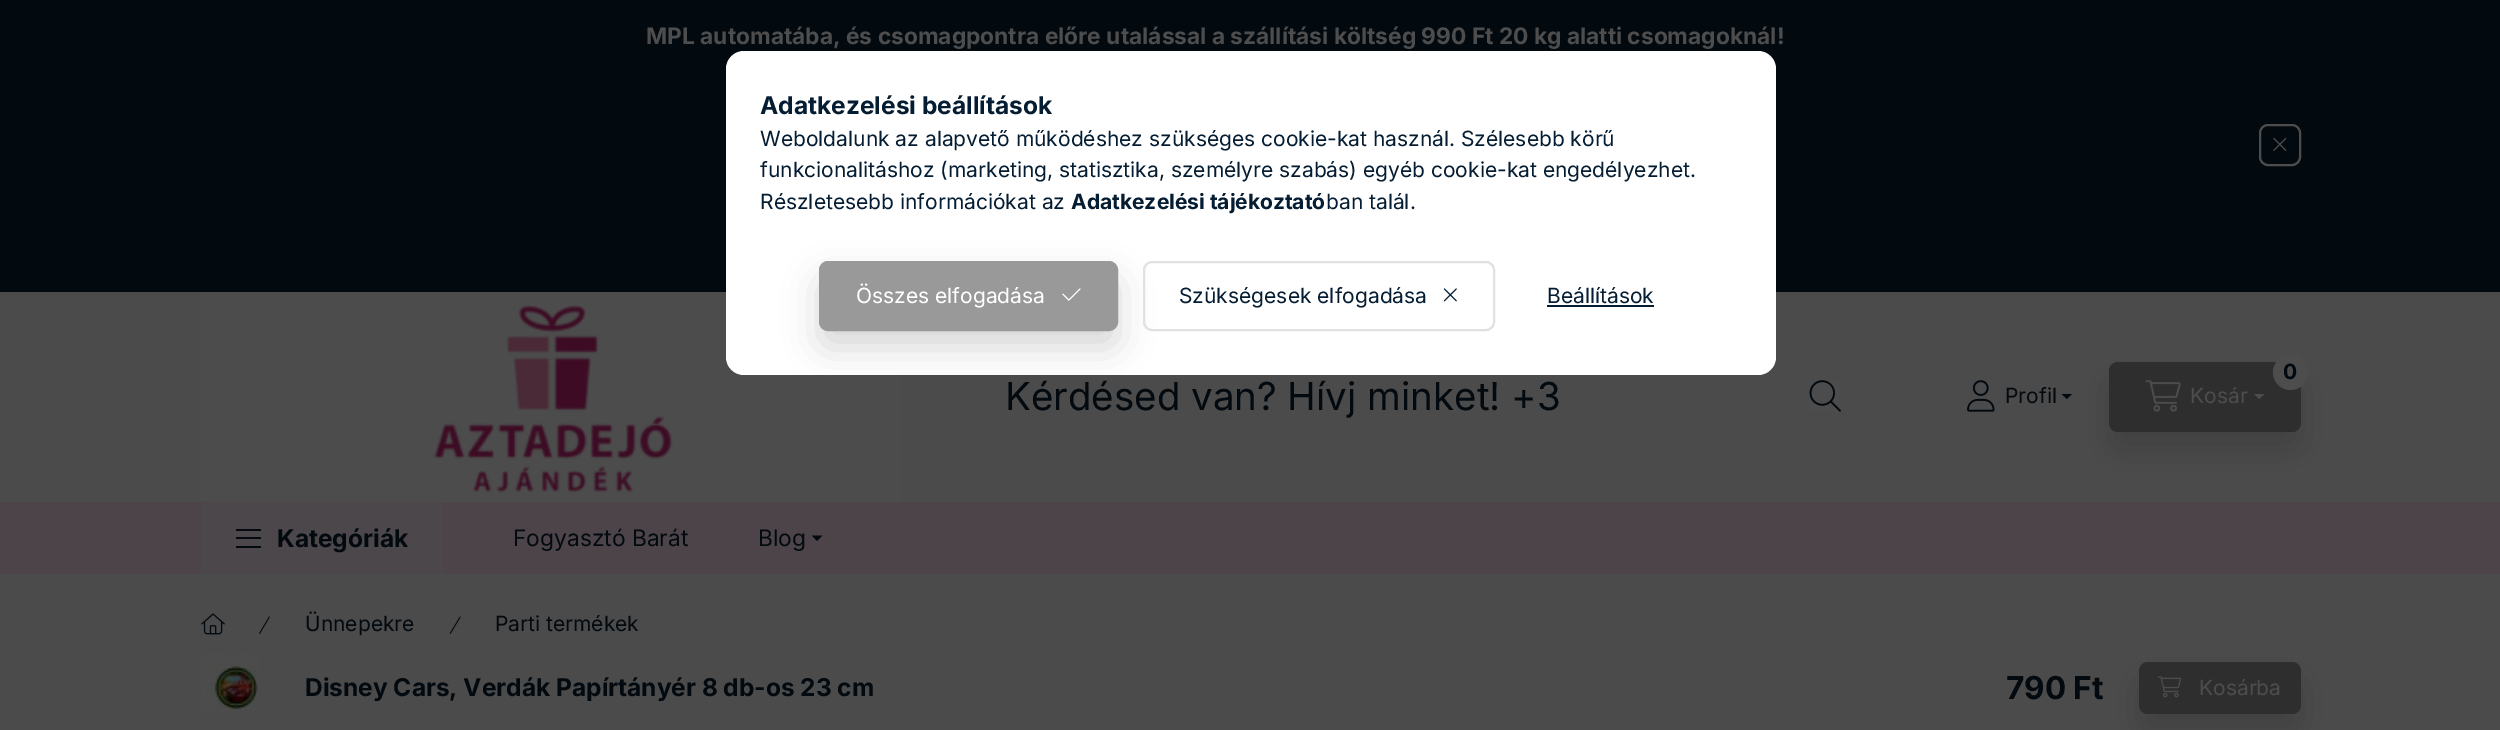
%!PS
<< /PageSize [2500 730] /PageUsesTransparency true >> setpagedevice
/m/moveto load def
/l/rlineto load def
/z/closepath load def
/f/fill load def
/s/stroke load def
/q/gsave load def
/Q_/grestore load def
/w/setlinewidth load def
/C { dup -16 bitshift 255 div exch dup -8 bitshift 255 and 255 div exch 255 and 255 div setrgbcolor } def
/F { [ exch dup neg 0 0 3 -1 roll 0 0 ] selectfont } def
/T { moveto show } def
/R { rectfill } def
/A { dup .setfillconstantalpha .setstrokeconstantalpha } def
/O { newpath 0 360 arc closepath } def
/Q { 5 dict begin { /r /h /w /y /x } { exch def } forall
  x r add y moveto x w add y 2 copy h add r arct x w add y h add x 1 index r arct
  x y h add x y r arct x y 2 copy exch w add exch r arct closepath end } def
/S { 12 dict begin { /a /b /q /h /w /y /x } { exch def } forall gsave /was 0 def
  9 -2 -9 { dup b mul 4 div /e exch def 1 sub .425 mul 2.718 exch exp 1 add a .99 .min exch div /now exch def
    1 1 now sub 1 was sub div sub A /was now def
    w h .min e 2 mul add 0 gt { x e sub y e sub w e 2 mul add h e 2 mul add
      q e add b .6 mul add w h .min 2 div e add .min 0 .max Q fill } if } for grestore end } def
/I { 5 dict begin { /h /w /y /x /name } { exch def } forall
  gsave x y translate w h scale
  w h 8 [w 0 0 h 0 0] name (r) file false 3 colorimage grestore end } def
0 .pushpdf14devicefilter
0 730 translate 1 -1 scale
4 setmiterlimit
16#4B4B4B C
0 0 2500 730 R
16#02090F C
0 0 2500 292 R
/Inter-Bold 22.75 F
16#4D4D4D C
(MPL automatába, és csomagpontra előre utalással a szállítási költség 990 Ft 20 kg alatti csomagoknál!) 646 44 T
2 w
2260 125 40 40 8 Q s
(1.rgb) 2273 137 14 14 I
16#4C4449 C
0 502 2500 72 R
(2.rgb) 201 293 700 210 I
/Inter-Regular 38.5 F
16#02090F C
(Kérdésed van? Hívj minket! +3) 1005 410 T
(3.rgb) 1809 380 32 32 I
(4.rgb) 1967 380 28 32 I
16#2E2E2E C
2109 380 192 70 9 17.5 .4 S
/Inter-Regular 21 F
16#02090F C
(Profil) 2005 403 T
2061.5 394 m 10.5 0 l -5 5 l z f
16#2E2E2E C
2109 362 192 70 9 Q f
16#4D4D4D C
2290.5 372.5 17.5 O f
/Inter-Bold 21 F
16#02090F C
(0) 2283 379 T
(5.rgb) 2145 380 36 32 I
/Inter-Regular 21 F
16#4D4D4D C
(Kosár) 2190 403 T
2254 394 m 10.5 0 l -5.5 5 l z f
0.3 A
201 503 242 71 R
1 A
16#02090F C
236 529 25 2 R
236 537 25 2 R
236 546 25 2 R
/Inter-Bold 24.5 F
(Kategóriák) 277 547 T
/Inter-Regular 22.75 F
(Fogyasztó Barát) 513 546 T
(Blog) 758 546 T
812 535.5 m 10.5 0 l -5.5 5.5 l z f
(6.rgb) 201 613 24 22 I
(7.rgb) 259 616 11 18 I
/Inter-Regular 21 F
(Ünnepekre) 305 631 T
(8.rgb) 449 616 12 18 I
(Parti termékek) 495 631 T
(9.rgb) 201 652 58 59 I
/Inter-Bold 24.5 F
(Disney Cars, Verdák Papírtányér 8 db-os 23 cm) 305 696 T
/Inter-Bold 31.5 F
(790 Ft) 2006 699 T
16#2E2E2E C
2139 679 162 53 9 17.5 .4 S
2139 662 162 52 9 Q f
(10.rgb) 2157 676 25 22 I
/Inter-Regular 21 F
16#4D4D4D C
(Kosárba) 2199 695 T
16#FFFFFF C
726 51 1050 324 18 Q f
/Inter-Bold 24.5 F
16#051D33 C
(Adatkezelési beállítások) 760 114 T
/Inter-Regular 21 F
(Weboldalunk az alapvető működéshez szükséges cookie-kat használ. Szélesebb körű) 760 146 T
(funkcionalitáshoz \(marketing, statisztika, személyre szabás\) egyéb cookie-kat engedélyezhet.) 760 177 T
(Részletesebb információkat az) 760 209 T
/Inter-Bold 21 F
(Adatkezelési tájékoztató) 1071 209 T
/Inter-Regular 21 F
(ban talál.) 1326 209 T
q
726 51 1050 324 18 Q clip newpath
16#999999 C
819 278 299 70 9 17.5 .4 S
Q_
16#999999 C
820 262 297 68 8 Q q f Q_
s
16#FFFFFF C
(Összes elfogadása) 856 303 T
(11.rgb) 1062 288 19 13 I
16#E1E1E1 C
1144 262 350 68 8 Q s
16#051D33 C
(Szükségesek elfogadása) 1179 303 T
(12.rgb) 1443 288 14 14 I
(Beállítások) 1547 303 T
1547 305 107 2 R
.poppdf14devicefilter showpage
